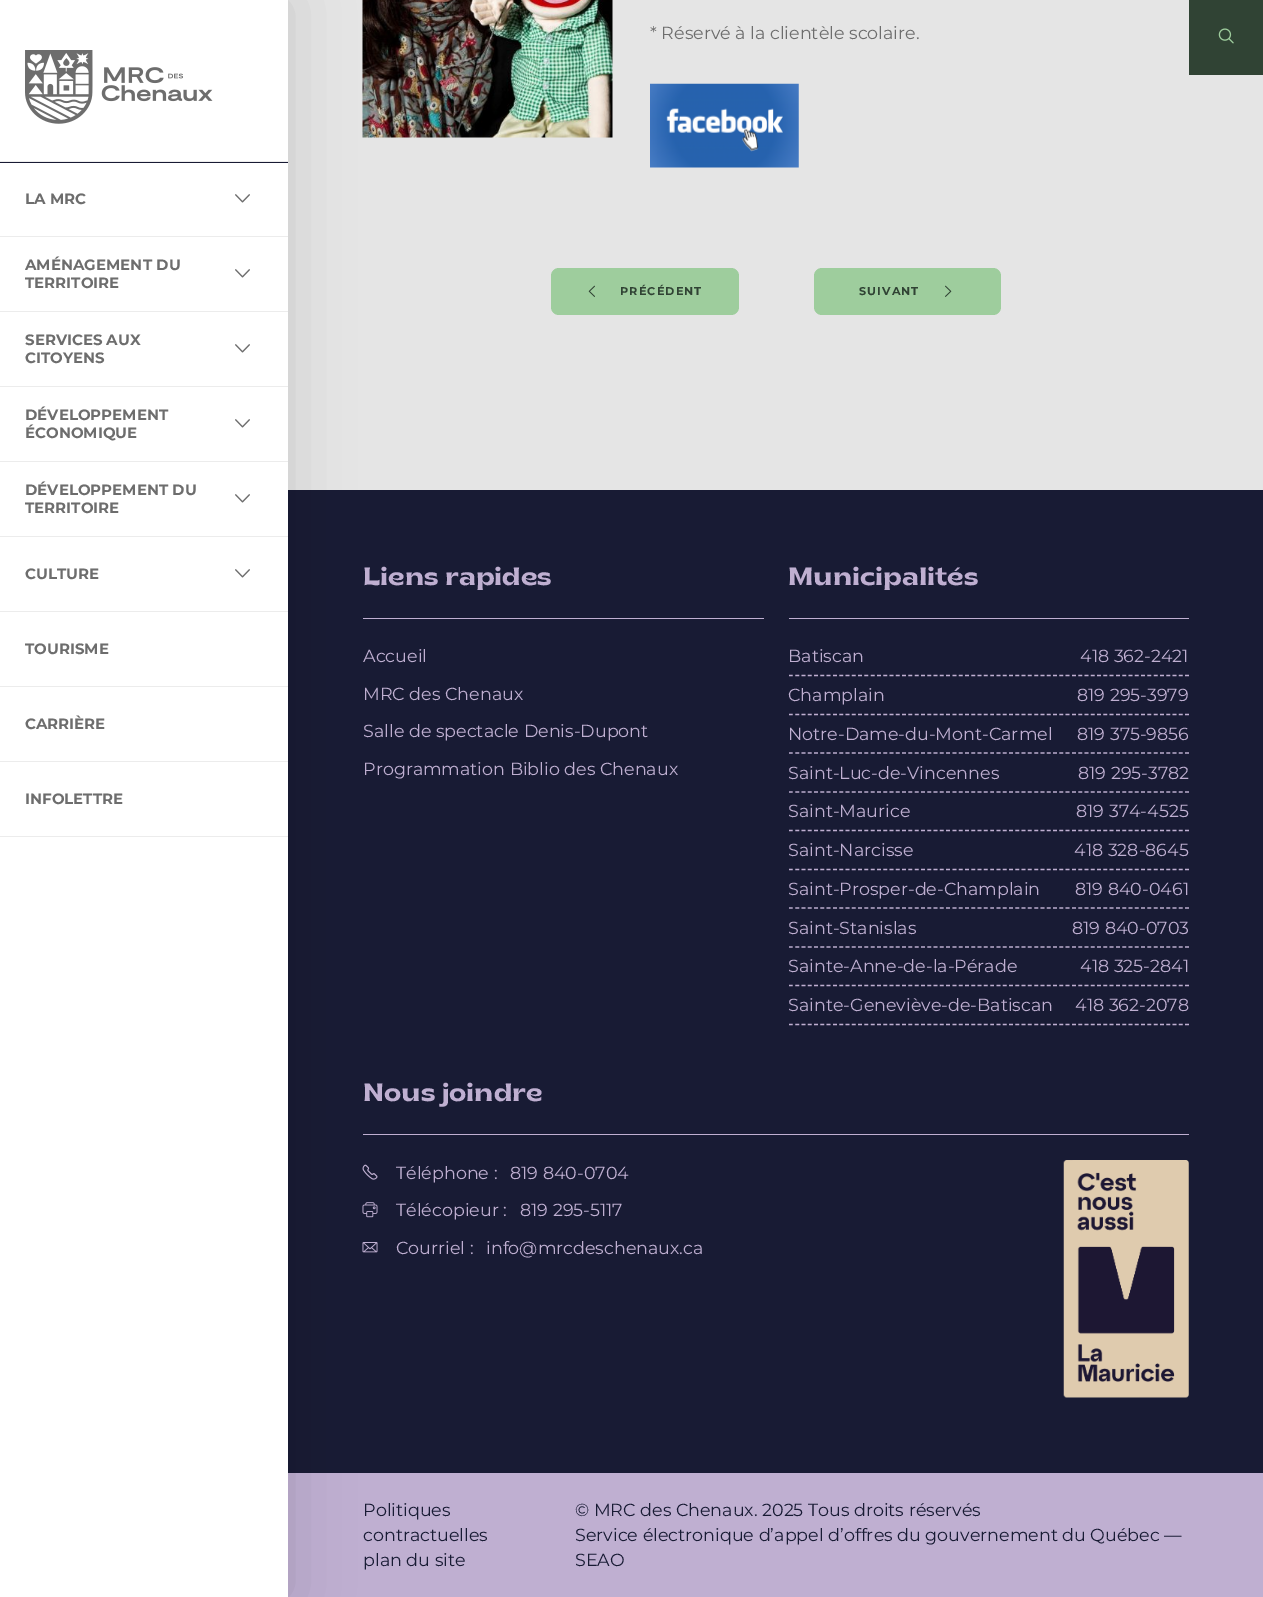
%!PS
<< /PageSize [1263 1597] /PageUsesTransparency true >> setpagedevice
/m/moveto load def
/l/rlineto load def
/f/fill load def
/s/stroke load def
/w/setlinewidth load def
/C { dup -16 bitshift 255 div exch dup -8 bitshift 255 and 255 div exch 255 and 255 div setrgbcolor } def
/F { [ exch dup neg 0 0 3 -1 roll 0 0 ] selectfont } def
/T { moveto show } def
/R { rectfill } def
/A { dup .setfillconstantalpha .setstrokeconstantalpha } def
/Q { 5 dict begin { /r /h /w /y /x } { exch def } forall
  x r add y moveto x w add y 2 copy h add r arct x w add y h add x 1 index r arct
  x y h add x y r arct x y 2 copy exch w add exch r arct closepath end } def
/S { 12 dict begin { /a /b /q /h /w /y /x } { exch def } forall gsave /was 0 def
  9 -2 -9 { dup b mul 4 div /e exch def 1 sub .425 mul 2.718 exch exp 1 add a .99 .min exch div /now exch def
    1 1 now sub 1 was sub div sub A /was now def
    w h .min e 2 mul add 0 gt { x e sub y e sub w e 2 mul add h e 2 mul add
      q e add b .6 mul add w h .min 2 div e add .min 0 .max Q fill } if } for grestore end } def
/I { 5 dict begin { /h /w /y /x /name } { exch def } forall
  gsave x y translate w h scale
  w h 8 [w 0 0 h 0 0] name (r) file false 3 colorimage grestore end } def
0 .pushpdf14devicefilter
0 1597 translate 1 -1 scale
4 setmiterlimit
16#E5E5E5 C
0 0 1263 1597 R
(1.rgb) 362 0 251 138 I
16#181B34 C
288 490 975 983 R
16#BFAFD1 C
363 618 401 1 R
363 1134 826 1 R
(6.rgb) 362 1164 16 16 I
(7.rgb) 362 1202 16 16 I
(8.rgb) 362 1242 16 11 I
288 1473 975 124 R
16#000000 C
0 0 288 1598 0 31 .13 S
/Montserrat-Regular 17.5 F
16#6D6D6D C
(* Réservé à la clientèle scolaire.) 650 39 T
(2.rgb) 650 83 149 85 I
16#9ECD9D C
551 268 188 47 8 Q f
(3.rgb) 588 285 7 12 I
/Montserrat-Bold 11.25 F
16#304334 C
620 295 m 1.1 0 (PRÉCÉDENT) ashow
16#9ECD9D C
814 268 187 47 8 Q f
16#304334 C
859 295 m 1.1 0 (SUIVANT) ashow
(4.rgb) 945 285 7 12 I
1189 0 74 75 R
(5.rgb) 1218 28 16 16 I
/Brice-SemiBold 25 F
16#BFAFD1 C
(Liens rapides) 363 585 T
/Montserrat-Regular 17.5 F
(Accueil) 363 662 T
(MRC des Chenaux) 363 700 T
(Salle de spectacle Denis-Dupont) 363 737 T
(Programmation Biblio des Chenaux) 363 775 T
789 618 400 1 R
/Brice-SemiBold 25 F
(Municipalités) 788 585 T
1.2 w
[3.75 2.54] 0 setdash
789 675.5 m 400 0 l s
/Montserrat-Regular 17.5 F
(Batiscan) 788 662 T
(418 362-2421) 1080 662 T
789 714.5 m 400 0 l s
(Champlain) 788 701 T
(819 295-3979) 1077 701 T
789 753 m 400 0 l s
(Notre-Dame-du-Mont-Carmel) 788 740 T
(819 375-9856) 1077 740 T
789 792 m 400 0 l s
(Saint-Luc-de-Vincennes) 788 779 T
(819 295-3782) 1078 779 T
789 830.5 m 400 0 l s
(Saint-Maurice) 788 817 T
(819 374-4525) 1076 817 T
789 869.5 m 400 0 l s
(Saint-Narcisse) 788 856 T
(418 328-8645) 1074 856 T
789 908 m 400 0 l s
(Saint-Prosper-de-Champlain) 788 895 T
(819 840-0461) 1075 895 T
789 947 m 400 0 l s
(Saint-Stanislas) 788 934 T
(819 840-0703) 1072 934 T
789 985.5 m 400 0 l s
(Sainte-Anne-de-la-Pérade) 788 972 T
(418 325-2841) 1080 972 T
789 1024.5 m 400 0 l s
(Sainte-Geneviève-de-Batiscan) 788 1011 T
(418 362-2078) 1075 1011 T
/Brice-SemiBold 25 F
(Nous joindre) 363 1101 T
/Montserrat-Regular 17.5 F
(Téléphone :) 396 1179 T
(819 840-0704) 510 1179 T
(Télécopieur :) 396 1216 T
(819 295-5117) 520 1216 T
(Courriel :) 396 1254 T
(info@mrcdeschenaux.ca) 486 1254 T
(9.rgb) 1063 1160 126 238 I
16#181B34 C
(Politiques) 363 1516 T
(contractuelles) 363 1541 T
(plan du site) 363 1566 T
(© MRC des Chenaux. 2025 Tous droits réservés) 575 1516 T
(Service électronique d’appel d’offres du gouvernement du Québec —) 575 1541 T
(SEAO) 575 1566 T
16#FFFFFF C
0 0 288 161 R
(10.rgb) 25 50 188 74 I
16#ECECEC C
0 161 288 1 R
16#FFFFFF C
0 163 288 450 R
16#ECECEC C
0 236 288 1 R
/Montserrat-Bold 15 F
16#6D6D6D C
(LA MRC) 25 204 T
(11.rgb) 235 194 15 9 I
16#ECECEC C
0 311 288 1 R
16#6D6D6D C
(AMÉNAGEMENT DU) 25 270 T
(TERRITOIRE) 25 288 T
(11.rgb) 235 269 15 9 I
16#ECECEC C
0 386 288 1 R
16#6D6D6D C
(SERVICES AUX) 25 345 T
(CITOYENS) 25 363 T
(11.rgb) 235 344 15 9 I
16#ECECEC C
0 461 288 1 R
16#6D6D6D C
(DÉVELOPPEMENT) 25 420 T
(ÉCONOMIQUE) 25 438 T
(11.rgb) 235 419 15 9 I
16#ECECEC C
0 536 288 1 R
16#6D6D6D C
(DÉVELOPPEMENT DU) 25 495 T
(TERRITOIRE) 25 513 T
(11.rgb) 235 494 15 9 I
16#ECECEC C
0 611 288 1 R
16#181B34 C
0 162 288 1 R
16#6D6D6D C
(CULTURE) 25 579 T
(11.rgb) 235 569 15 9 I
16#FFFFFF C
0 613 288 984 R
16#ECECEC C
0 686 288 1 R
16#6D6D6D C
(TOURISME) 25 654 T
16#ECECEC C
0 761 288 1 R
16#6D6D6D C
(CARRIÈRE) 25 729 T
16#ECECEC C
0 836 288 1 R
16#6D6D6D C
(INFOLETTRE) 25 804 T
.poppdf14devicefilter showpage
